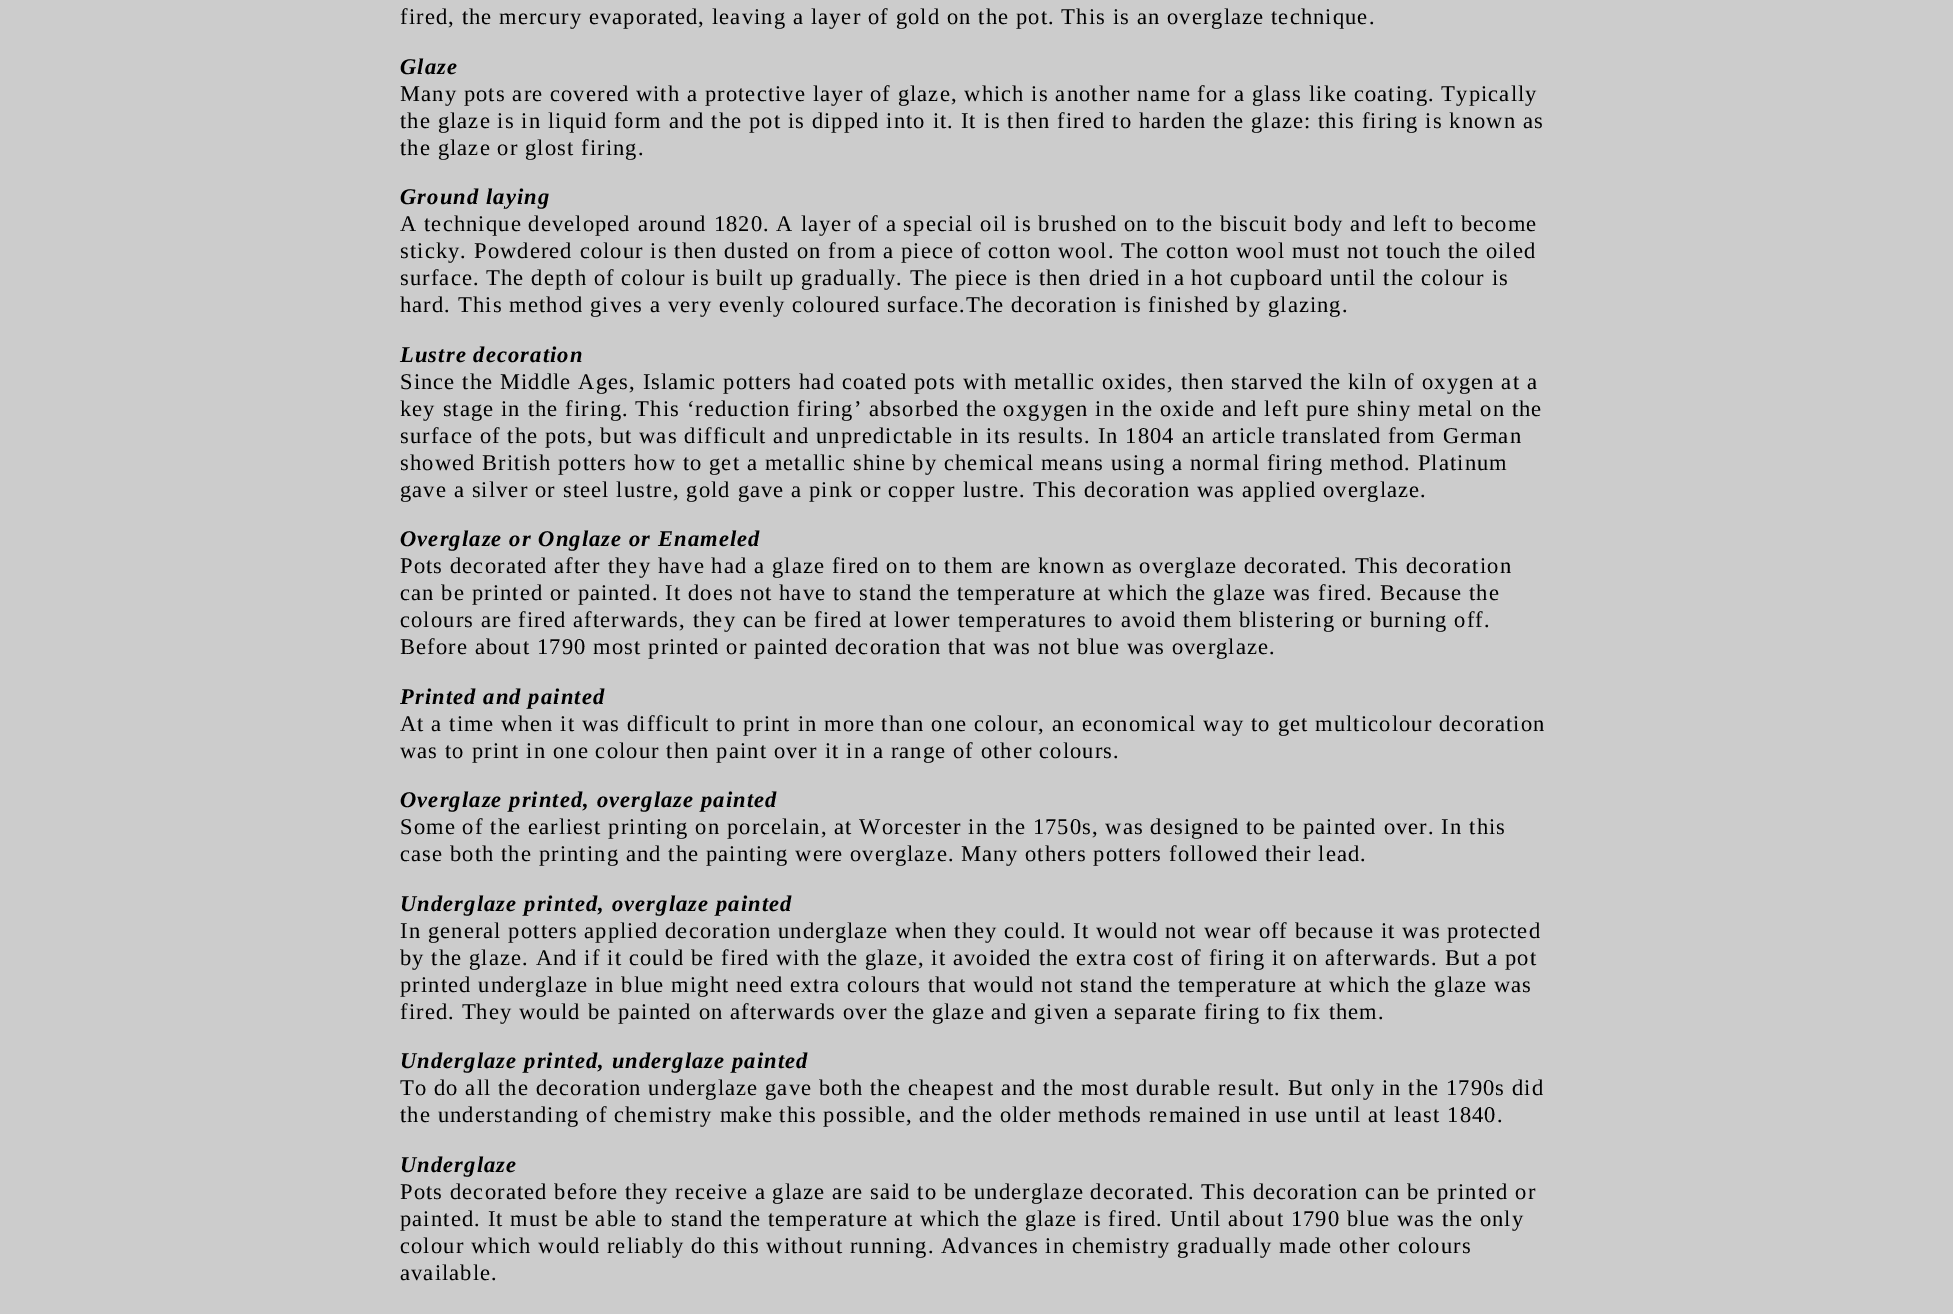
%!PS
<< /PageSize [1953 1314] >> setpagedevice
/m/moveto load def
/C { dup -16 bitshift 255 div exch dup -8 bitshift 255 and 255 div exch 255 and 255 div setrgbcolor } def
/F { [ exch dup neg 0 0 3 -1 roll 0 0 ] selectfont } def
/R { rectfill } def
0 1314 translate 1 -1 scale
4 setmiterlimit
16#CCCCCC C
0 0 1953 1314 R
/LiberationSerif-Regular 22.5 F
16#000000 C
400 24 m 1.12 0 (fired, the mercury evaporated, leaving a layer of gold on the pot. This is an overglaze technique.) ashow
/LiberationSerif-BoldItalic 22.5 F
400 74 m 1.12 0 (Glaze) ashow
/LiberationSerif-Regular 22.5 F
400 101 m 1.12 0 (Many pots are covered with a protective layer of glaze, which is another name for a glass like coating. Typically) ashow
400 128 m 1.12 0 (the glaze is in liquid form and the pot is dipped into it. It is then fired to harden the glaze: this firing is known as) ashow
400 155 m 1.12 0 (the glaze or glost firing.) ashow
/LiberationSerif-BoldItalic 22.5 F
400 204 m 1.12 0 (Ground laying) ashow
/LiberationSerif-Regular 22.5 F
400 231 m 1.12 0 (A technique developed around 1820. A layer of a special oil is brushed on to the biscuit body and left to become) ashow
400 258 m 1.12 0 (sticky. Powdered colour is then dusted on from a piece of cotton wool. The cotton wool must not touch the oiled) ashow
400 285 m 1.12 0 (surface. The depth of colour is built up gradually. The piece is then dried in a hot cupboard until the colour is) ashow
400 312 m 1.12 0 (hard. This method gives a very evenly coloured surface.The decoration is finished by glazing.) ashow
/LiberationSerif-BoldItalic 22.5 F
400 362 m 1.12 0 (Lustre decoration) ashow
/LiberationSerif-Regular 22.5 F
400 389 m 1.12 0 (Since the Middle Ages, Islamic potters had coated pots with metallic oxides, then starved the kiln of oxygen at a) ashow
400 416 m 1.12 0 (key stage in the firing. This ‘reduction firing’ absorbed the oxgygen in the oxide and left pure shiny metal on the) ashow
400 443 m 1.12 0 (surface of the pots, but was difficult and unpredictable in its results. In 1804 an article translated from German) ashow
400 470 m 1.12 0 (showed British potters how to get a metallic shine by chemical means using a normal firing method. Platinum) ashow
400 497 m 1.12 0 (gave a silver or steel lustre, gold gave a pink or copper lustre. This decoration was applied overglaze.) ashow
/LiberationSerif-BoldItalic 22.5 F
400 546 m 1.12 0 (Overglaze or Onglaze or Enameled) ashow
/LiberationSerif-Regular 22.5 F
400 573 m 1.12 0 (Pots decorated after they have had a glaze fired on to them are known as overglaze decorated. This decoration) ashow
400 600 m 1.12 0 (can be printed or painted. It does not have to stand the temperature at which the glaze was fired. Because the) ashow
400 627 m 1.12 0 (colours are fired afterwards, they can be fired at lower temperatures to avoid them blistering or burning off.) ashow
400 654 m 1.12 0 (Before about 1790 most printed or painted decoration that was not blue was overglaze.) ashow
/LiberationSerif-BoldItalic 22.5 F
400 704 m 1.12 0 (Printed and painted) ashow
/LiberationSerif-Regular 22.5 F
400 731 m 1.12 0 (At a time when it was difficult to print in more than one colour, an economical way to get multicolour decoration) ashow
400 758 m 1.12 0 (was to print in one colour then paint over it in a range of other colours.) ashow
/LiberationSerif-BoldItalic 22.5 F
400 807 m 1.12 0 (Overglaze printed, overglaze painted) ashow
/LiberationSerif-Regular 22.5 F
400 834 m 1.12 0 (Some of the earliest printing on porcelain, at Worcester in the 1750s, was designed to be painted over. In this) ashow
400 861 m 1.12 0 (case both the printing and the painting were overglaze. Many others potters followed their lead.) ashow
/LiberationSerif-BoldItalic 22.5 F
400 911 m 1.12 0 (Underglaze printed, overglaze painted) ashow
/LiberationSerif-Regular 22.5 F
400 938 m 1.12 0 (In general potters applied decoration underglaze when they could. It would not wear off because it was protected) ashow
400 965 m 1.12 0 (by the glaze. And if it could be fired with the glaze, it avoided the extra cost of firing it on afterwards. But a pot) ashow
400 992 m 1.12 0 (printed underglaze in blue might need extra colours that would not stand the temperature at which the glaze was) ashow
400 1019 m 1.12 0 (fired. They would be painted on afterwards over the glaze and given a separate firing to fix them.) ashow
/LiberationSerif-BoldItalic 22.5 F
400 1068 m 1.12 0 (Underglaze printed, underglaze painted) ashow
/LiberationSerif-Regular 22.5 F
400 1095 m 1.12 0 (To do all the decoration underglaze gave both the cheapest and the most durable result. But only in the 1790s did) ashow
400 1122 m 1.12 0 (the understanding of chemistry make this possible, and the older methods remained in use until at least 1840.) ashow
/LiberationSerif-BoldItalic 22.5 F
400 1172 m 1.12 0 (Underglaze) ashow
/LiberationSerif-Regular 22.5 F
400 1199 m 1.12 0 (Pots decorated before they receive a glaze are said to be underglaze decorated. This decoration can be printed or) ashow
400 1226 m 1.12 0 (painted. It must be able to stand the temperature at which the glaze is fired. Until about 1790 blue was the only) ashow
400 1253 m 1.12 0 (colour which would reliably do this without running. Advances in chemistry gradually made other colours) ashow
400 1280 m 1.12 0 (available.) ashow
showpage
